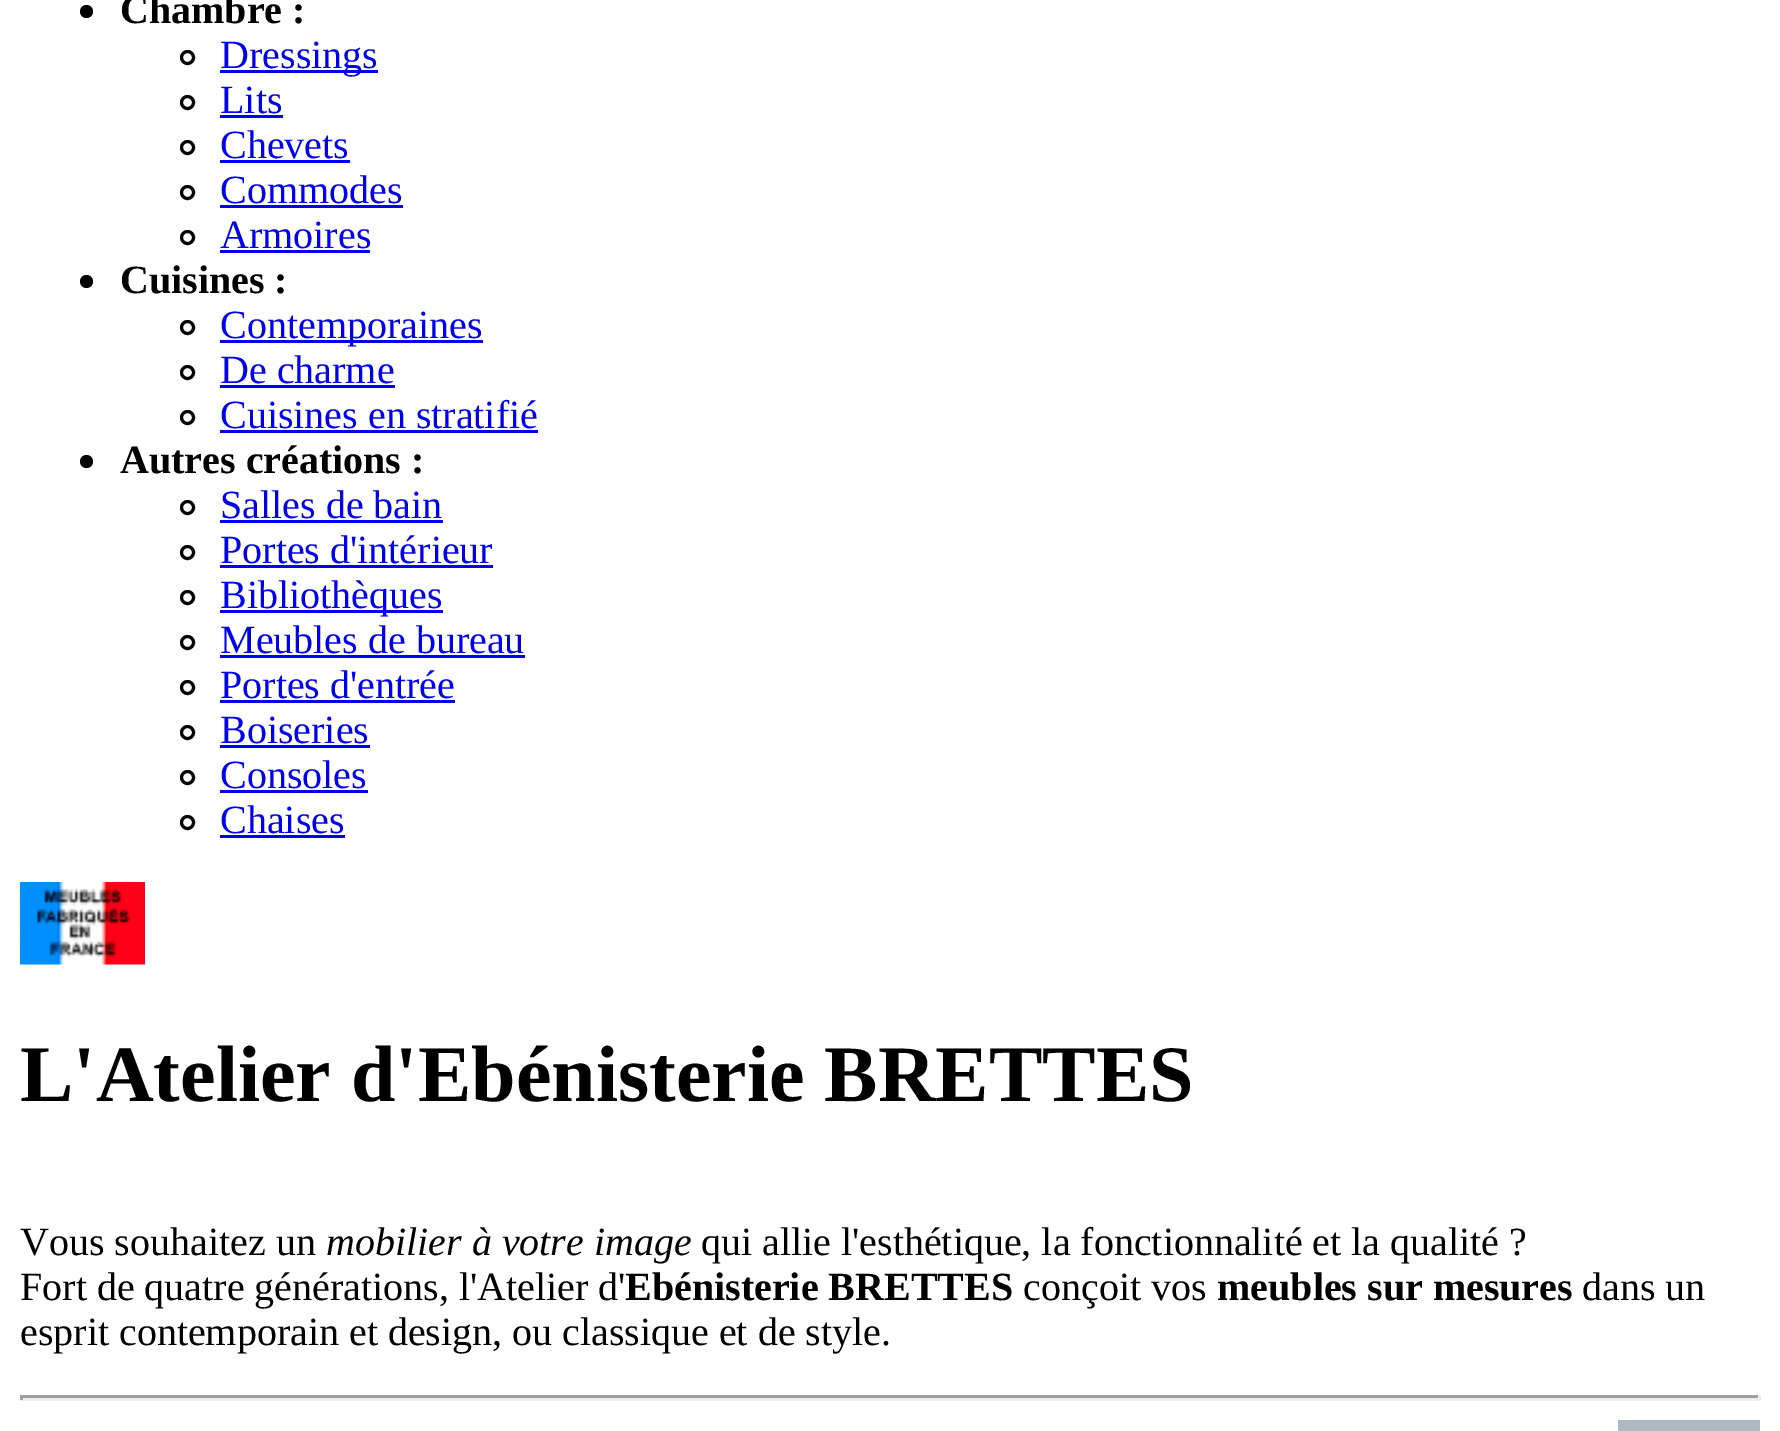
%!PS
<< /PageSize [1780 1431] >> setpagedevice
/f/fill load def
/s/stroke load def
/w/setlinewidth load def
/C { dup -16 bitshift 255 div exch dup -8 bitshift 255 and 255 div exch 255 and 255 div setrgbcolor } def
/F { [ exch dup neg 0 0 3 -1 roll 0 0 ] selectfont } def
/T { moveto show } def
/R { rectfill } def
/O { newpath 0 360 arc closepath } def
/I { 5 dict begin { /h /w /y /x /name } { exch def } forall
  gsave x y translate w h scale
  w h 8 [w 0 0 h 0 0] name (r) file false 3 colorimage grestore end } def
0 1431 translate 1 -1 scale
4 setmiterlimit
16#FFFFFF C
0 0 1780 1431 R
16#000000 C
86.5 11.5 6.5 O f
/LiberationSerif-Bold 40 F
(Chambre :) 120 23 T
3 w
187.5 57.5 6 O s
16#0000EE C
220 70 158 3 R
/LiberationSerif-Regular 40 F
(Dressings) 220 68 T
16#000000 C
187.5 102.5 6 O s
16#0000EE C
(Lits) 220 113 T
220 115 63 3 R
16#000000 C
187.5 147.5 6 O s
16#0000EE C
(Chevets) 220 158 T
220 160 130 3 R
16#000000 C
187.5 192.5 6 O s
16#0000EE C
(Commodes) 220 203 T
220 205 183 3 R
16#000000 C
187.5 237.5 6 O s
16#0000EE C
(Armoires) 220 248 T
220 250 150 3 R
16#000000 C
86.5 281.5 6.5 O f
/LiberationSerif-Bold 40 F
(Cuisines :) 120 293 T
187.5 327.5 6 O s
16#0000EE C
220 340 263 3 R
/LiberationSerif-Regular 40 F
(Contemporaines) 220 338 T
16#000000 C
187.5 372.5 6 O s
16#0000EE C
(De charme) 220 383 T
220 385 175 3 R
16#000000 C
187.5 417.5 6 O s
16#0000EE C
(Cuisines en stratifié) 220 428 T
220 430 318 3 R
16#000000 C
86.5 461.5 6.5 O f
/LiberationSerif-Bold 40 F
(Autres créations :) 120 473 T
187.5 507.5 6 O s
/LiberationSerif-Regular 40 F
16#0000EE C
(Salles de bain) 220 518 T
220 520 223 3 R
16#000000 C
187.5 552.5 6 O s
16#0000EE C
(Portes d'intérieur) 220 563 T
220 565 273 3 R
16#000000 C
187.5 597.5 6 O s
16#0000EE C
220 610 223 3 R
(Bibliothèques) 220 608 T
16#000000 C
187.5 642.5 6 O s
16#0000EE C
(Meubles de bureau) 220 653 T
220 655 305 3 R
16#000000 C
187.5 687.5 6 O s
16#0000EE C
(Portes d'entrée) 220 698 T
220 700 235 3 R
16#000000 C
187.5 732.5 6 O s
16#0000EE C
(Boiseries) 220 743 T
220 745 150 3 R
16#000000 C
187.5 777.5 6 O s
16#0000EE C
(Consoles) 220 788 T
220 790 148 3 R
16#000000 C
187.5 822.5 6 O s
16#0000EE C
(Chaises) 220 833 T
220 835 125 3 R
(1.rgb) 20 882 125 83 I
/LiberationSerif-Bold 80 F
16#000000 C
(L'Atelier d'Ebénisterie BRETTES) 20 1101 T
/LiberationSerif-Regular 40 F
(Vous souhaitez un) 20 1255 T
/LiberationSerif-Italic 40 F
(mobilier à votre image) 326 1255 T
/LiberationSerif-Regular 40 F
(qui allie l'esthétique, la fonctionnalité et la qualité ?) 701 1255 T
(Fort de quatre générations, l'Atelier d') 20 1300 T
/LiberationSerif-Bold 40 F
(Ebénisterie BRETTES) 625 1300 T
/LiberationSerif-Regular 40 F
(conçoit vos) 1023 1300 T
/LiberationSerif-Bold 40 F
(meubles sur mesures) 1217 1300 T
/LiberationSerif-Regular 40 F
(dans un) 1582 1300 T
(esprit contemporain et design, ou classique et de style.) 20 1345 T
16#9F9F9F C
20 1395 1740 3 R
16#EEEEEE C
1758 1395 3 5 R
20 1398 1740 3 R
16#9F9F9F C
20 1395 3 5 R
16#AFB9C2 C
1618 1420 142 11 R
showpage
